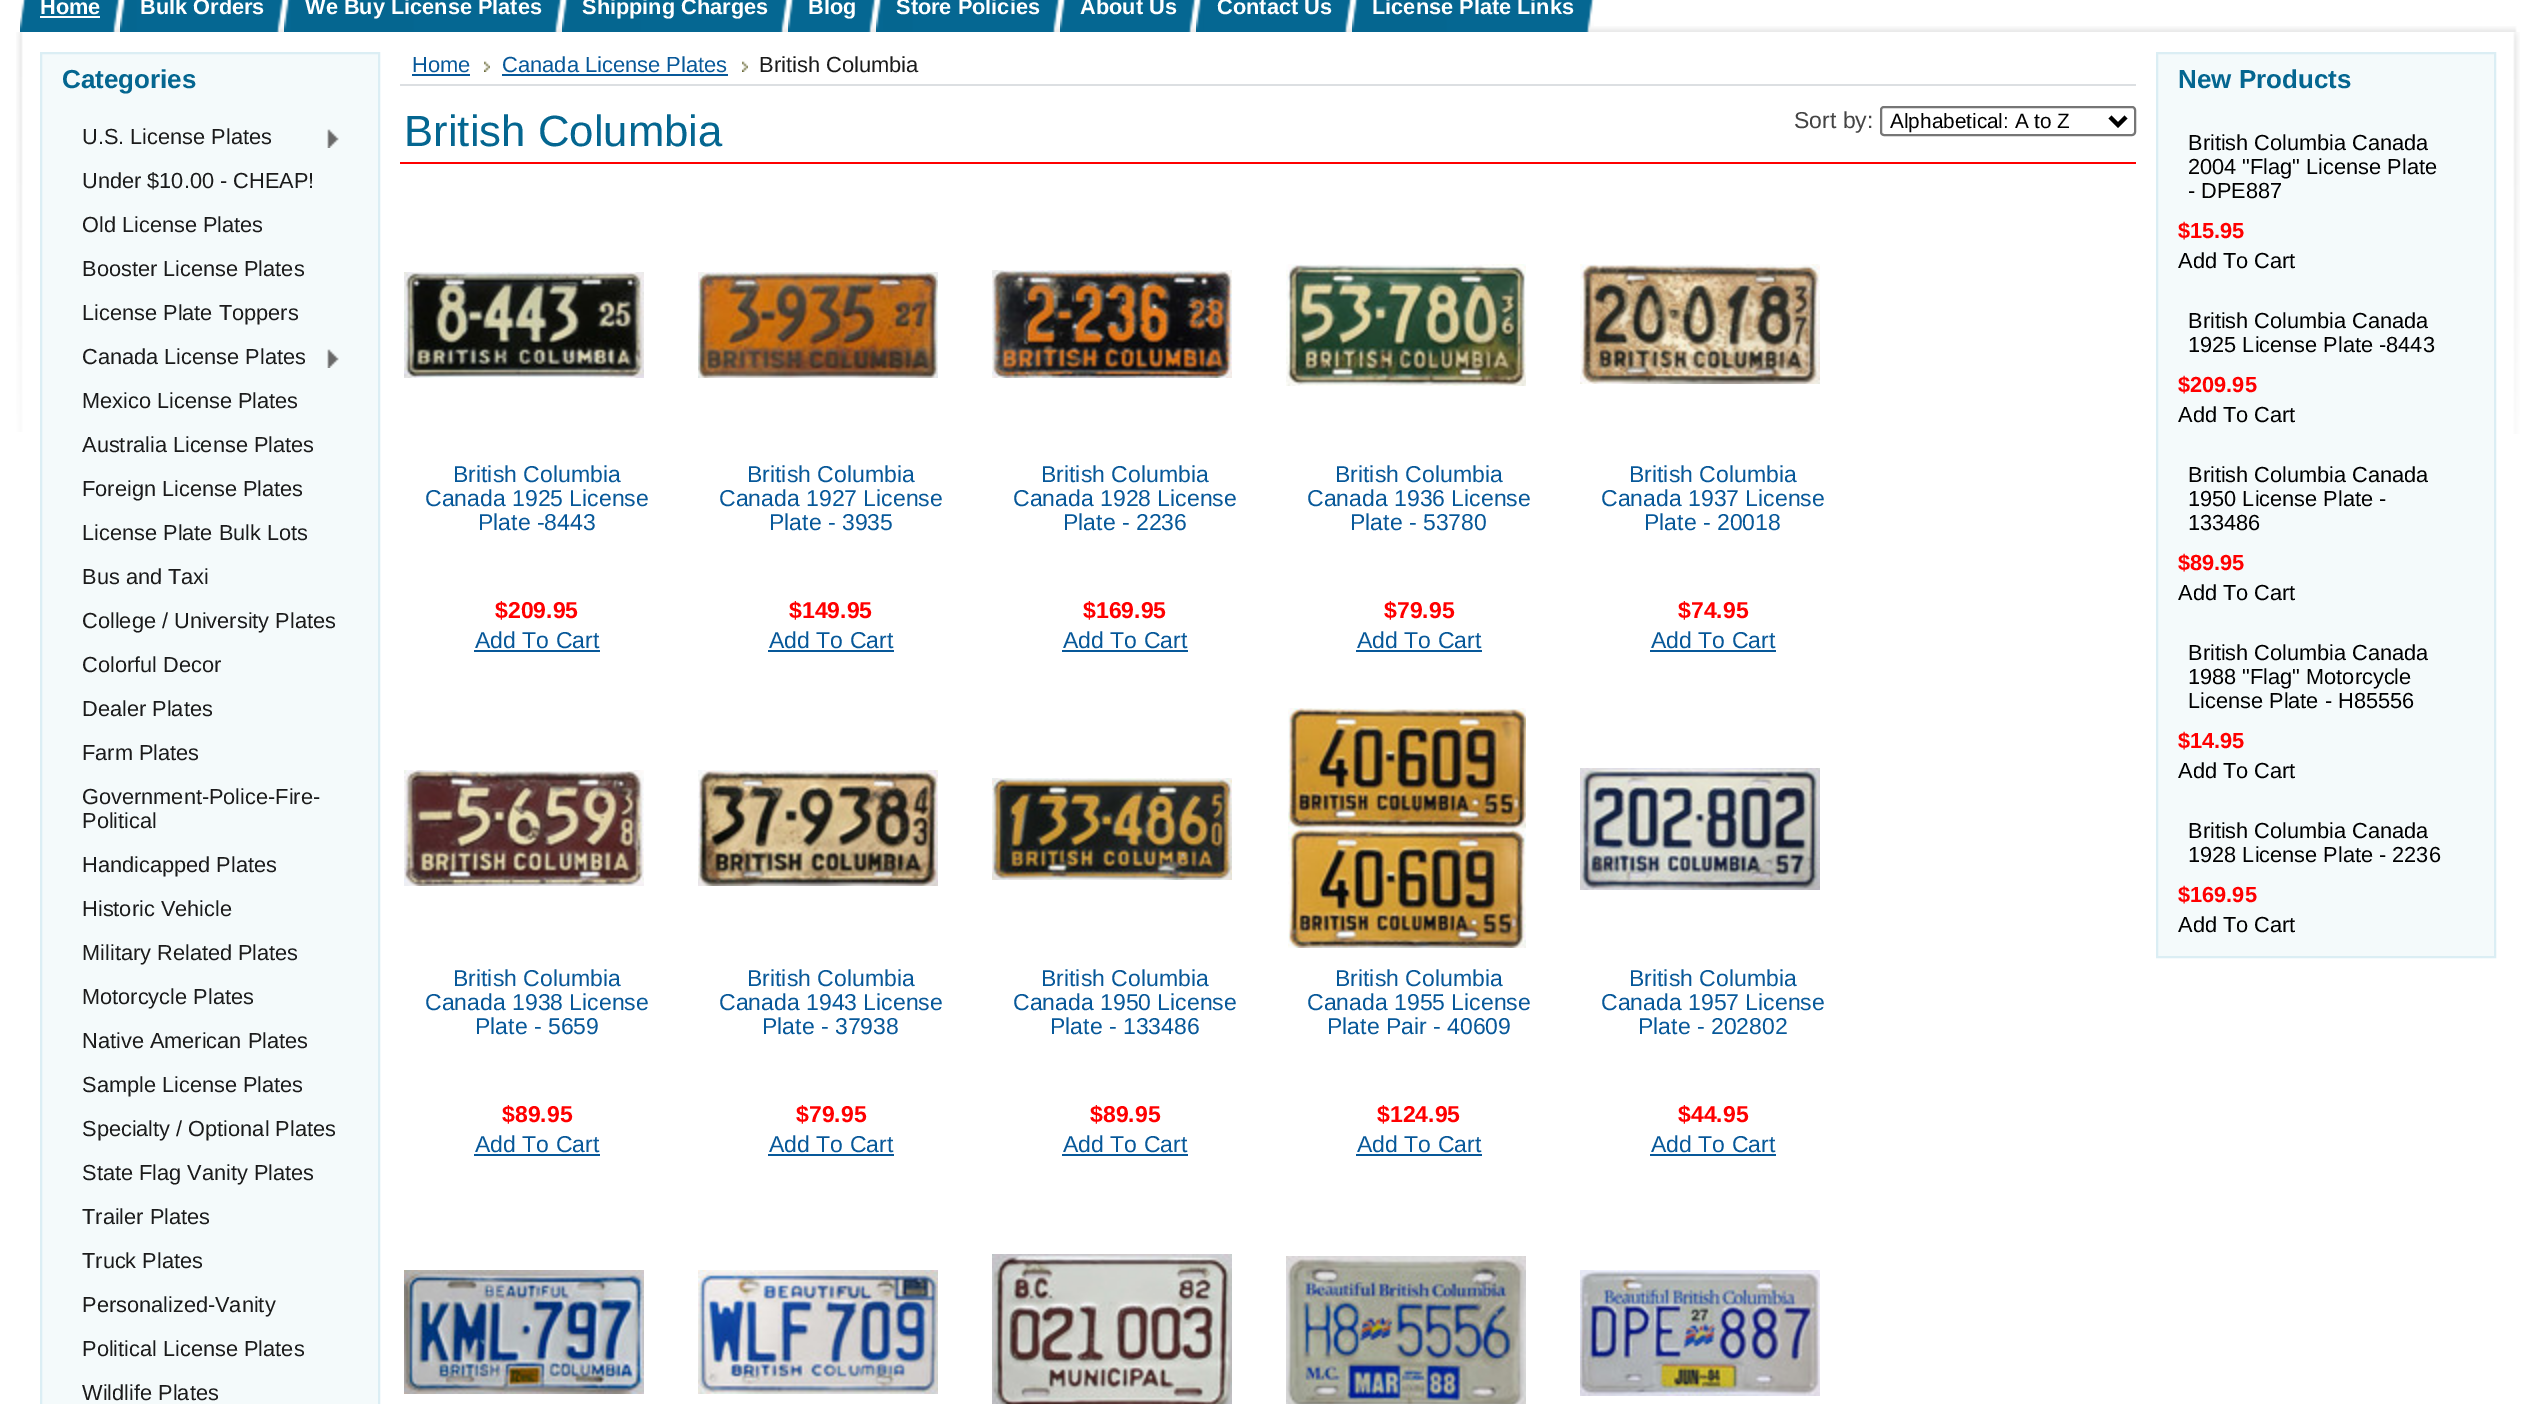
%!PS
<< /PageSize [2535 1404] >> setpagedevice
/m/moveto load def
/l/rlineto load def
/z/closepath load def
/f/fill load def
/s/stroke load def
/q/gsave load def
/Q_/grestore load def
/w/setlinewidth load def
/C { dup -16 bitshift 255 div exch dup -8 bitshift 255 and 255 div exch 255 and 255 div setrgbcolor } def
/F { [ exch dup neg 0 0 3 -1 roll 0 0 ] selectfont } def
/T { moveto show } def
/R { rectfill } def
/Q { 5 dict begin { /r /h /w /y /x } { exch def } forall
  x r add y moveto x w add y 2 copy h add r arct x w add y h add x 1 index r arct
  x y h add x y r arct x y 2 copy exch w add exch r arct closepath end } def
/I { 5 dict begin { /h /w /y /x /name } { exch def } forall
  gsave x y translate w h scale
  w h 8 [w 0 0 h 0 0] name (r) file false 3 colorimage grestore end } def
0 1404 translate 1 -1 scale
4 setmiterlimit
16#FFFFFF C
0 0 2535 1404 R
(1.rgb) 16 32 7 400 I
(2.rgb) 1594 26 923 6 I
(3.rgb) 20 0 100 32 I
(4.rgb) 20 0 7 30 I
/LiberationSans-Bold 21.75 F
(Home) 40 14 T
40 16 60 2 R
(5.rgb) 120 0 164 32 I
(4.rgb) 120 0 7 30 I
(Bulk Orders) 140 14 T
(6.rgb) 284 0 278 32 I
(4.rgb) 284 0 7 30 I
(We Buy License Plates) 305 14 T
(7.rgb) 562 0 226 32 I
(4.rgb) 562 0 7 30 I
(Shipping Charges) 582 14 T
(8.rgb) 788 0 88 32 I
(4.rgb) 788 0 7 30 I
(Blog) 808 14 T
(9.rgb) 876 0 184 32 I
(4.rgb) 876 0 7 30 I
(Store Policies) 896 14 T
(10.rgb) 1060 0 136 32 I
(4.rgb) 1060 0 7 30 I
(About Us) 1080 14 T
(11.rgb) 1196 0 156 32 I
(4.rgb) 1196 0 7 30 I
(Contact Us) 1217 14 T
(12.rgb) 1352 0 242 32 I
(4.rgb) 1352 0 7 30 I
(License Plate Links) 1372 14 T
(13.rgb) 2513 32 7 402 I
16#F4FAFB C
41 53 m 338 0 l 0 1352 l -338 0 l z q f Q_
16#DBEEF4 C
2 w
s
/LiberationSans-Bold 26 F
16#046690 C
(Categories) 62 88 T
/LiberationSans-Regular 21.75 F
16#1B1B1B C
(U.S. License Plates) 82 144 T
(14.rgb) 327 129 12 19 I
(Under $10.00 - CHEAP!) 82 188 T
(Old License Plates) 82 232 T
(Booster License Plates) 82 276 T
(License Plate Toppers) 82 320 T
(Canada License Plates) 82 364 T
(14.rgb) 327 349 12 19 I
(Mexico License Plates) 82 408 T
(Australia License Plates) 82 452 T
(Foreign License Plates) 82 496 T
(License Plate Bulk Lots) 82 540 T
(Bus and Taxi) 82 584 T
(College / University Plates) 82 628 T
(Colorful Decor) 82 672 T
(Dealer Plates) 82 716 T
(Farm Plates) 82 760 T
(Government-Police-Fire-) 82 804 T
(Political) 82 828 T
(Handicapped Plates) 82 872 T
(Historic Vehicle) 82 916 T
(Military Related Plates) 82 960 T
(Motorcycle Plates) 82 1004 T
(Native American Plates) 82 1048 T
(Sample License Plates) 82 1092 T
(Specialty / Optional Plates) 82 1136 T
(State Flag Vanity Plates) 82 1180 T
(Trailer Plates) 82 1224 T
(Truck Plates) 82 1268 T
(Personalized-Vanity) 82 1312 T
(Political License Plates) 82 1356 T
(Wildlife Plates) 82 1400 T
16#DCDFE2 C
400 84 1736 2 R
/LiberationSans-Regular 21.9 F
16#075899 C
(Home) 412 72 T
412 74 58 2 R
(15.rgb) 484 61 6 11 I
(Canada License Plates) 502 72 T
502 74 226 2 R
(15.rgb) 742 61 6 11 I
16#1B1B1B C
(British Columbia) 759 72 T
16#FF0000 C
400 162 1736 2 R
/LiberationSans-Regular 43.75 F
16#046690 C
(British Columbia) 404 146 T
/LiberationSans-Regular 23 F
16#444444 C
(Sort by:) 1794 128 T
16#767676 C
1881 107 254 28 3 Q s
16#000000 C
4 w
2110 117 m 8 8 l 8 -8 l s
/LiberationSans-Regular 20.75 F
(Alphabetical: A to Z) 1890 128 T
(16.rgb) 404 272 240 106 I
/LiberationSans-Regular 23 F
16#075899 C
(British Columbia) 453 482 T
(Canada 1925 License) 425 506 T
(Plate -8443) 478 530 T
/LiberationSans-Bold 23 F
16#FF0000 C
($209.95) 495 618 T
/LiberationSans-Regular 23 F
16#075899 C
(Add To Cart) 475 648 T
474 650 126 2 R
(17.rgb) 698 272 240 106 I
(British Columbia) 747 482 T
(Canada 1927 License) 719 506 T
(Plate - 3935) 769 530 T
/LiberationSans-Bold 23 F
16#FF0000 C
($149.95) 789 618 T
/LiberationSans-Regular 23 F
16#075899 C
(Add To Cart) 769 648 T
768 650 126 2 R
(18.rgb) 992 270 240 108 I
(British Columbia) 1041 482 T
(Canada 1928 License) 1013 506 T
(Plate - 2236) 1063 530 T
/LiberationSans-Bold 23 F
16#FF0000 C
($169.95) 1083 618 T
/LiberationSans-Regular 23 F
16#075899 C
(Add To Cart) 1063 648 T
1062 650 126 2 R
(19.rgb) 1286 264 240 122 I
(British Columbia) 1335 482 T
(Canada 1936 License) 1307 506 T
(Plate - 53780) 1350 530 T
/LiberationSans-Bold 23 F
16#FF0000 C
($79.95) 1384 618 T
/LiberationSans-Regular 23 F
16#075899 C
(Add To Cart) 1357 648 T
1356 650 126 2 R
(20.rgb) 1580 264 240 120 I
(British Columbia) 1629 482 T
(Canada 1937 License) 1601 506 T
(Plate - 20018) 1644 530 T
/LiberationSans-Bold 23 F
16#FF0000 C
($74.95) 1678 618 T
/LiberationSans-Regular 23 F
16#075899 C
(Add To Cart) 1651 648 T
1650 650 126 2 R
(21.rgb) 404 770 240 116 I
(British Columbia) 453 986 T
(Canada 1938 License) 425 1010 T
(Plate - 5659) 475 1034 T
/LiberationSans-Bold 23 F
16#FF0000 C
($89.95) 502 1122 T
/LiberationSans-Regular 23 F
16#075899 C
(Add To Cart) 475 1152 T
474 1154 126 2 R
(22.rgb) 698 770 240 116 I
(British Columbia) 747 986 T
(Canada 1943 License) 719 1010 T
(Plate - 37938) 762 1034 T
/LiberationSans-Bold 23 F
16#FF0000 C
($79.95) 796 1122 T
/LiberationSans-Regular 23 F
16#075899 C
(Add To Cart) 769 1152 T
768 1154 126 2 R
(23.rgb) 992 778 240 102 I
(British Columbia) 1041 986 T
(Canada 1950 License) 1013 1010 T
(Plate - 133486) 1050 1034 T
/LiberationSans-Bold 23 F
16#FF0000 C
($89.95) 1090 1122 T
/LiberationSans-Regular 23 F
16#075899 C
(Add To Cart) 1063 1152 T
1062 1154 126 2 R
(24.rgb) 1288 708 238 240 I
(British Columbia) 1335 986 T
(Canada 1955 License) 1307 1010 T
(Plate Pair - 40609) 1327 1034 T
/LiberationSans-Bold 23 F
16#FF0000 C
($124.95) 1377 1122 T
/LiberationSans-Regular 23 F
16#075899 C
(Add To Cart) 1357 1152 T
1356 1154 126 2 R
(25.rgb) 1580 768 240 122 I
(British Columbia) 1629 986 T
(Canada 1957 License) 1601 1010 T
(Plate - 202802) 1638 1034 T
/LiberationSans-Bold 23 F
16#FF0000 C
($44.95) 1678 1122 T
/LiberationSans-Regular 23 F
16#075899 C
(Add To Cart) 1651 1152 T
1650 1154 126 2 R
(26.rgb) 404 1270 240 124 I
(27.rgb) 698 1270 240 124 I
(28.rgb) 992 1254 240 150 I
(29.rgb) 1286 1256 240 148 I
(30.rgb) 1580 1270 240 126 I
16#F4FAFB C
2157 53 m 338 0 l 0 904 l -338 0 l z q f Q_
16#DBEEF4 C
2 w
s
/LiberationSans-Bold 26 F
16#046690 C
(New Products) 2178 88 T
/LiberationSans-Regular 21.75 F
16#000000 C
(British Columbia Canada) 2188 150 T
(2004 "Flag" License Plate) 2188 174 T
(- DPE887) 2188 198 T
/LiberationSans-Bold 21.75 F
16#FF0000 C
($15.95) 2178 238 T
/LiberationSans-Regular 21.75 F
16#000000 C
(Add To Cart) 2178 268 T
(British Columbia Canada) 2188 328 T
(1925 License Plate -8443) 2188 352 T
/LiberationSans-Bold 21.75 F
16#FF0000 C
($209.95) 2178 392 T
/LiberationSans-Regular 21.75 F
16#000000 C
(Add To Cart) 2178 422 T
(British Columbia Canada) 2188 482 T
(1950 License Plate -) 2188 506 T
(133486) 2188 530 T
/LiberationSans-Bold 21.75 F
16#FF0000 C
($89.95) 2178 570 T
/LiberationSans-Regular 21.75 F
16#000000 C
(Add To Cart) 2178 600 T
(British Columbia Canada) 2188 660 T
(1988 "Flag" Motorcycle) 2188 684 T
(License Plate - H85556) 2188 708 T
/LiberationSans-Bold 21.75 F
16#FF0000 C
($14.95) 2178 748 T
/LiberationSans-Regular 21.75 F
16#000000 C
(Add To Cart) 2178 778 T
(British Columbia Canada) 2188 838 T
(1928 License Plate - 2236) 2188 862 T
/LiberationSans-Bold 21.75 F
16#FF0000 C
($169.95) 2178 902 T
/LiberationSans-Regular 21.75 F
16#000000 C
(Add To Cart) 2178 932 T
showpage
